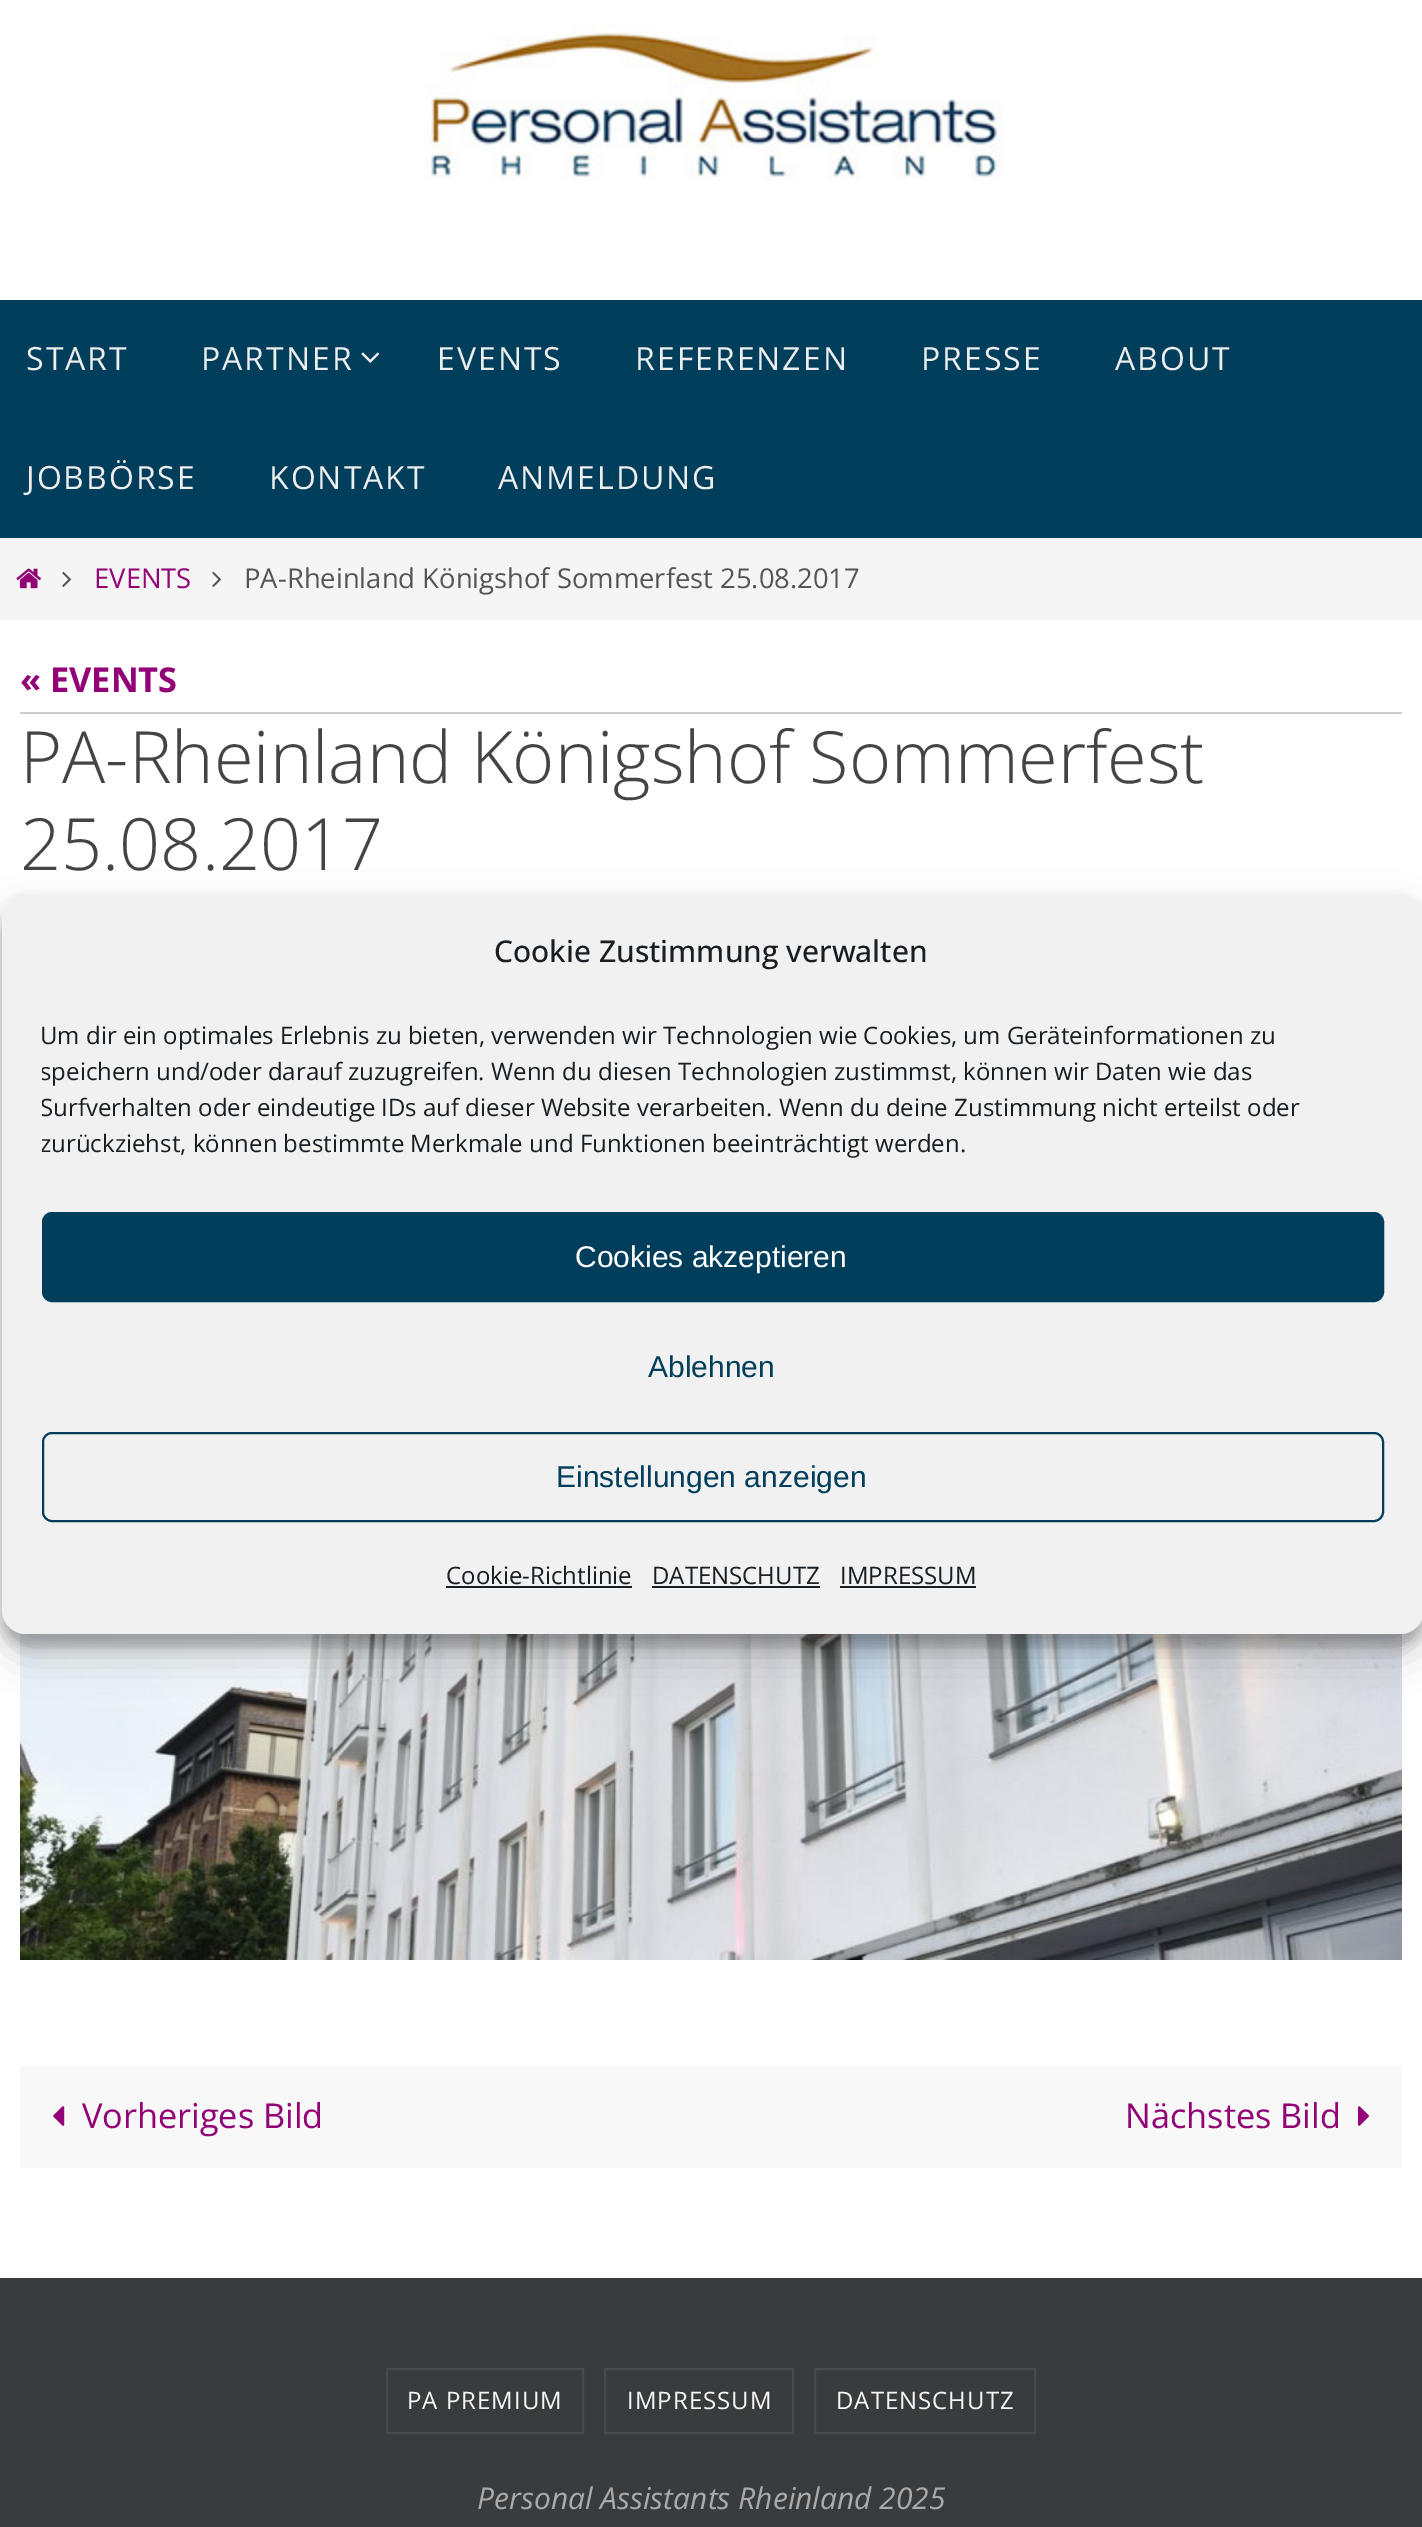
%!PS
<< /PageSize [1422 2527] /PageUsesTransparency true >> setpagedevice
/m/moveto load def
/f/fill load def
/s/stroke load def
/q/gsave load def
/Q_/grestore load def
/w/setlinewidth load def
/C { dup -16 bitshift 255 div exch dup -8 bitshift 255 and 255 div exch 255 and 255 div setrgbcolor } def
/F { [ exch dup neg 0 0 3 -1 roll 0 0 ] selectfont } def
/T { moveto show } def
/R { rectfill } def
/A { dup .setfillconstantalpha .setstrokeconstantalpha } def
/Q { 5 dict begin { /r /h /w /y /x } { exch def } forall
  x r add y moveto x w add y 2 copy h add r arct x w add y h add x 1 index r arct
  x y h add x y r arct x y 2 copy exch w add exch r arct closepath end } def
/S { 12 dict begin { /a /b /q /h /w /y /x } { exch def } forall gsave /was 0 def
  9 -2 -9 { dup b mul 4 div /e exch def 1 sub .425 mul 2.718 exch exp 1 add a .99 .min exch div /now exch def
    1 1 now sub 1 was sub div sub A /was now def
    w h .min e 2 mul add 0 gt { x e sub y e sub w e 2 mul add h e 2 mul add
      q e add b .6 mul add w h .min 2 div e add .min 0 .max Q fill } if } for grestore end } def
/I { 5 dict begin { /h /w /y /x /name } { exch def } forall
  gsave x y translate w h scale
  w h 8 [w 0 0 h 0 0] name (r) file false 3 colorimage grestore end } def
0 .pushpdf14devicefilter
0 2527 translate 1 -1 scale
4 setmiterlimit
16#FFFFFF C
0 0 1422 2527 R
(1.rgb) 425 23 579 157 I
16#013E5B C
0 300 1422 238 R
/OpenSans-Regular 32 F
16#EEEEEE C
26 370 m 2 0 (START) ashow
201 370 m 2 0 (PARTNER) ashow
(2.rgb) 361 352 19 11 I
437 370 m 2 0 (EVENTS) ashow
635 370 m 2 0 (REFERENZEN) ashow
921 370 m 2 0 (PRESSE) ashow
1115 370 m 2 0 (ABOUT) ashow
26 489 m 2 0 (JOBBÖRSE) ashow
269 489 m 2 0 (KONTAKT) ashow
498 489 m 2 0 (ANMELDUNG) ashow
16#F5F5F5 C
0 538 1422 82 R
(3.rgb) 16 568 25 21 I
(4.rgb) 62 571 9 16 I
/OpenSans-Regular 27.4 F
16#930176 C
(EVENTS) 94 588 T
(4.rgb) 212 571 9 16 I
16#555555 C
(PA-Rheinland Königshof Sommerfest 25.08.2017) 244 588 T
16#CCCCCC C
20 712 1382 2 R
/OpenSans-Bold 34.25 F
16#930176 C
(« EVENTS) 20 692 T
/OpenSans-Light 72 F
16#444444 C
(PA-Rheinland Königshof Sommerfest) 20 783 T
(25.08.2017) 20 870 T
16#EEEEEE C
20 894 1382 1 R
(5.rgb) 20 1633 1382 327 I
16#F8F8F8 C
20 2066 1382 102 R
(6.rgb) 53 2106 12 20 I
/OpenSans-Regular 34.25 F
16#930176 C
(Vorheriges Bild) 82 2128 T
(Nächstes Bild) 1125 2128 T
(7.rgb) 1358 2106 11 20 I
16#3A3B3D C
0 2278 1422 249 R
16#494A4C C
2 w
387 2369 196 64 rectstroke
/OpenSans-Regular 24 F
16#F7F7F7 C
407 2409 m 1 0 (PA PREMIUM) ashow
16#494A4C C
605 2369 188 64 rectstroke
16#F7F7F7 C
627 2409 m 1 0 (IMPRESSUM) ashow
16#494A4C C
815 2369 220 64 rectstroke
16#F7F7F7 C
836 2409 m 1 0 (DATENSCHUTZ) ashow
/OpenSans-Italic 30 F
16#AAAAAA C
(Personal Assistants Rheinland 2025) 477 2509 T
16#000000 C
2 906 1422 740 24 6 .23 S
2 914 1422 740 24 20 .19 S
16#F1F1F1 C
2 894 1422 740 24 Q f
/OpenSans-Medium 30 F
16#191E23 C
(Cookie Zustimmung verwalten) 494 962 T
/OpenSans-Regular 24 F
(Um dir ein optimales Erlebnis zu bieten, verwenden wir Technologien wie Cookies, um Geräteinformationen zu) 40 1044 T
q
42 1018 1342 154 rectclip
(speichern und/oder darauf zuzugreifen. Wenn du diesen Technologien zustimmst, können wir Daten wie das) 40 1080 T
(Surfverhalten oder eindeutige IDs auf dieser Website verarbeiten. Wenn du deine Zustimmung nicht erteilst oder) 40 1116 T
(zurückziehst, können bestimmte Merkmale und Funktionen beeinträchtigt werden.) 40 1152 T
Q_
16#013E5B C
43 1213 1340 88 9 Q q f Q_
s
/LiberationSans-Regular 30 F
16#FFFFFF C
(Cookies akzeptieren) 575 1267 T
16#013E5B C
(Ablehnen) 648 1377 T
43 1433 1340 88 9 Q s
(Einstellungen anzeigen) 556 1487 T
/OpenSans-Regular 24 F
16#191E23 C
(Cookie-Richtlinie) 446 1584 T
446 1586 186 2 R
(DATENSCHUTZ) 652 1584 T
652 1586 168 2 R
(IMPRESSUM) 840 1584 T
840 1586 136 2 R
.poppdf14devicefilter showpage
